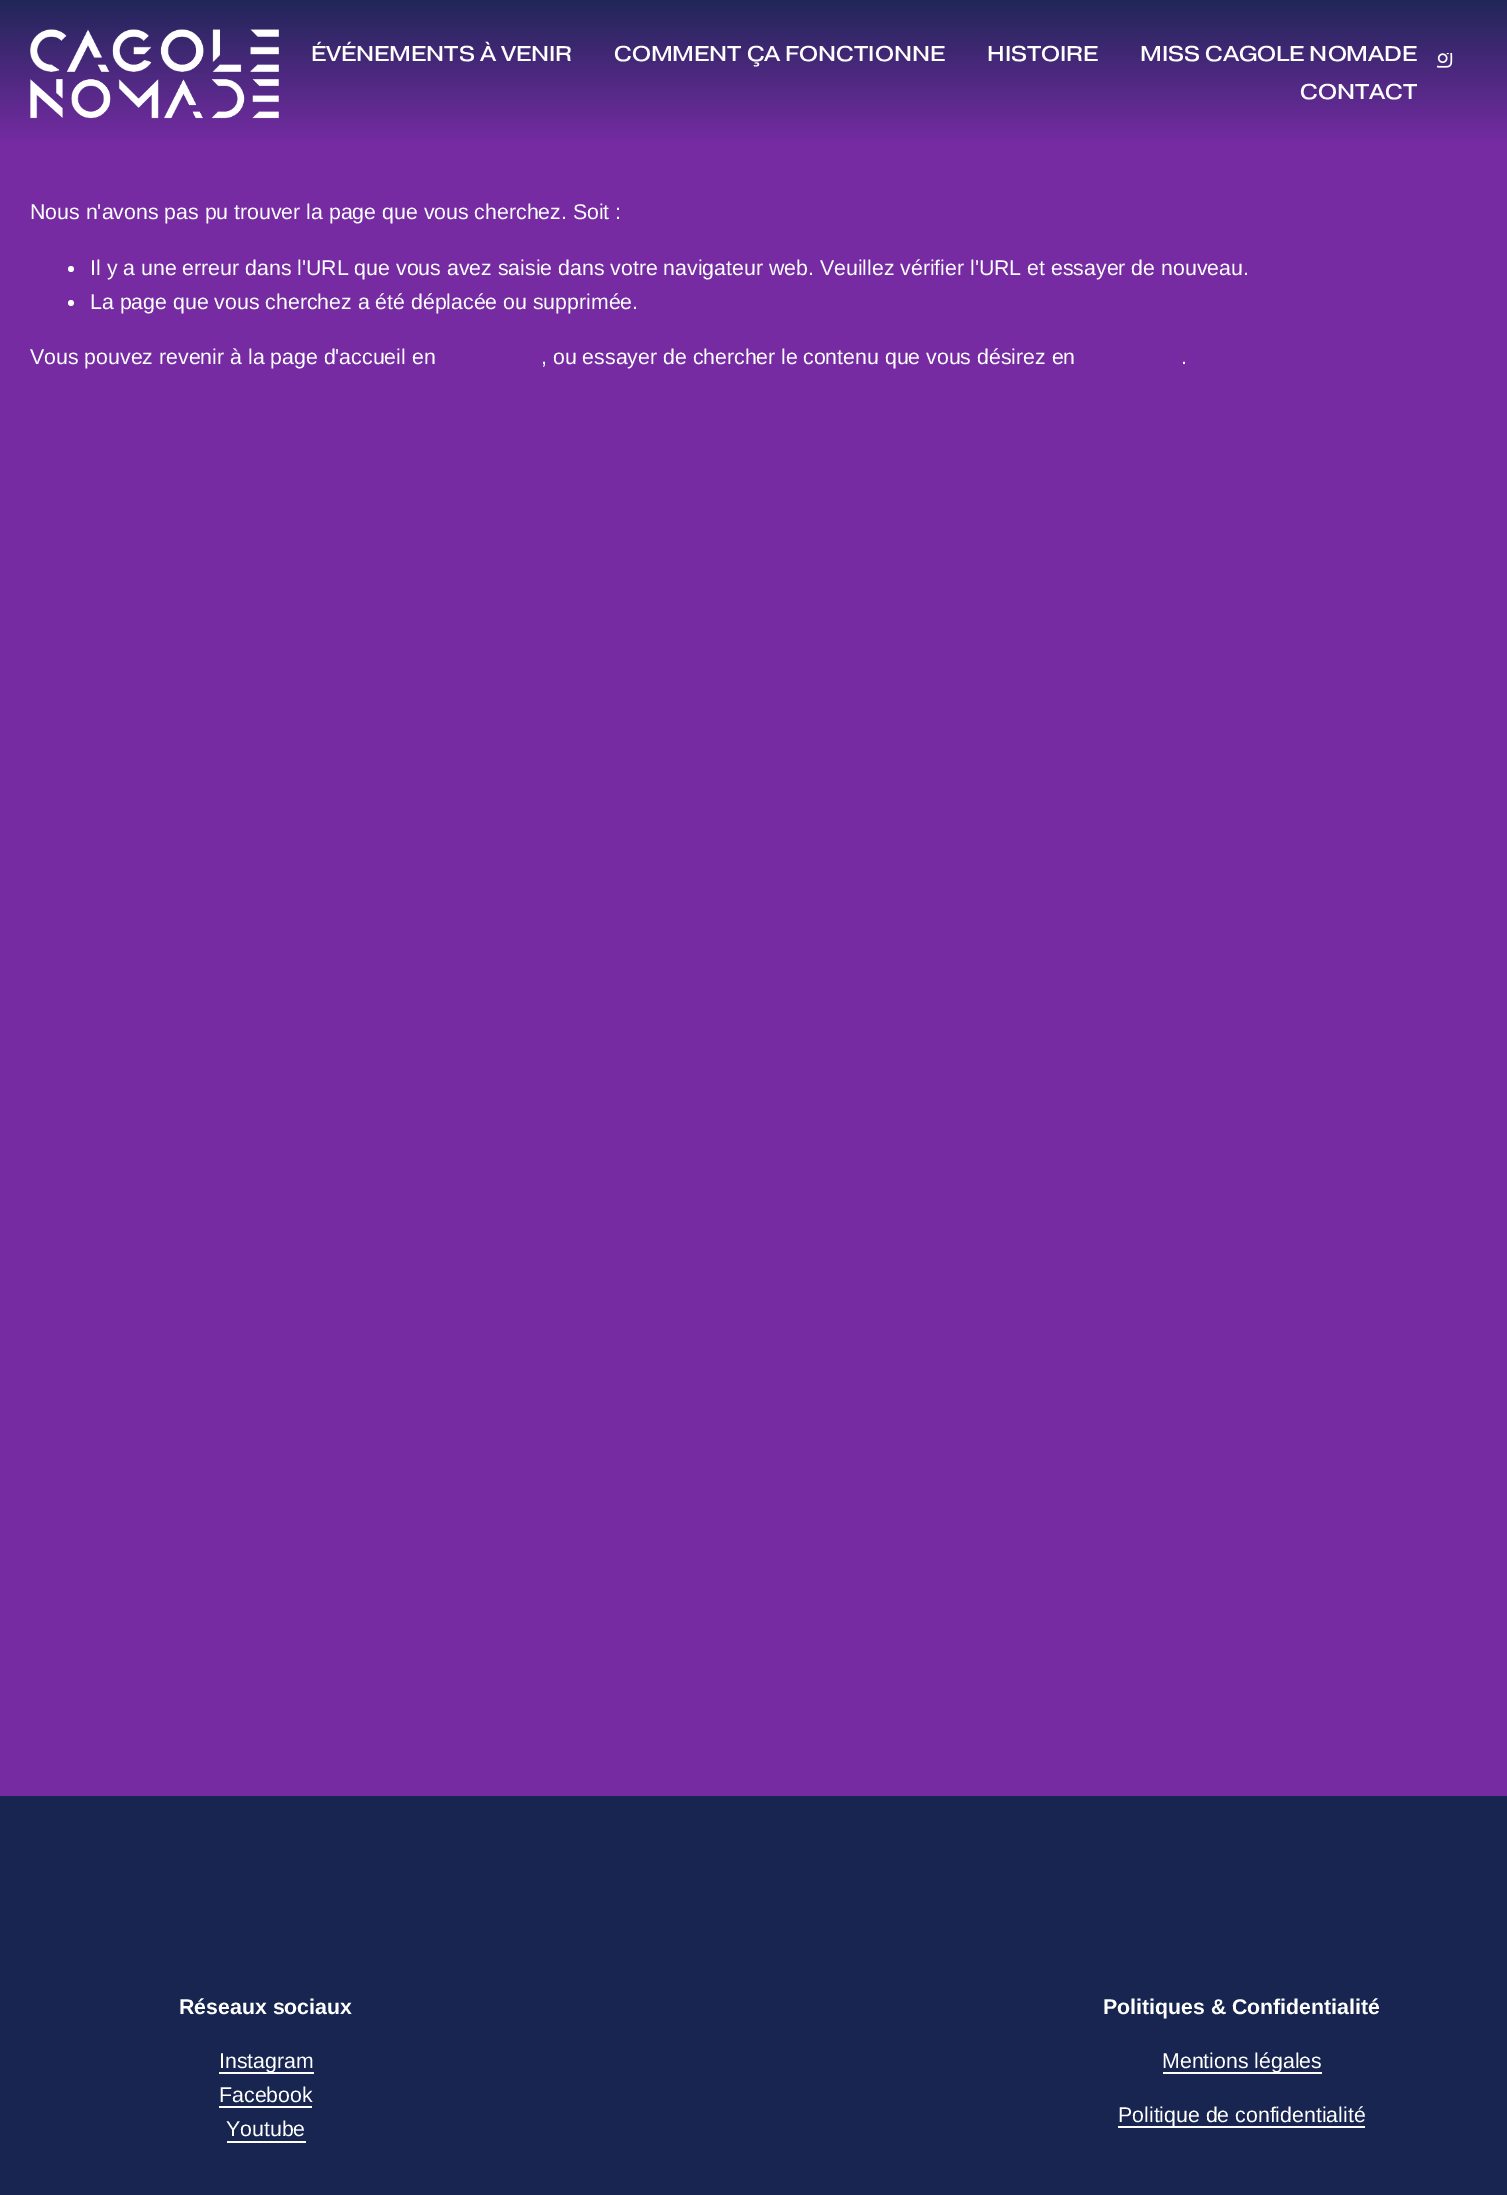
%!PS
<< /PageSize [1507 2195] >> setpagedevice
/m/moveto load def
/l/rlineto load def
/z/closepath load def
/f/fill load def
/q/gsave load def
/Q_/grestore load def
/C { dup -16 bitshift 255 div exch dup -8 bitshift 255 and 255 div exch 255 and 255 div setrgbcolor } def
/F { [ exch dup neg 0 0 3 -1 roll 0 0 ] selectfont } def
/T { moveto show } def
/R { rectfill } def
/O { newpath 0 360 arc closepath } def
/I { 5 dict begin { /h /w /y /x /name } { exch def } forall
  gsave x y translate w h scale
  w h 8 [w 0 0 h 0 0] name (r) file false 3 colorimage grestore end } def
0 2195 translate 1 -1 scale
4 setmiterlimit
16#762BA3 C
0 0 1507 2195 R
q 0 0 m 1507 0 l 0 142 l -1507 0 l z clip newpath
<< /ShadingType 2 /ColorSpace /DeviceRGB /Coords [754 0 754 146] /Extend [true true] /Function << /FunctionType 2 /Domain [0 1] /C0 [.129 .149 .345] /C1 [.463 .169 .643] /N 1 >> >> shfill Q_
(1.rgb) 30 29 249 90 I
/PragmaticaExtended-Regular 21.3 F
16#FFFFFF C
(ÉVÉNEMENTS À VENIR) 311 61 T
(COMMENT ÇA FONCTIONNE) 614 61 T
(HISTOIRE) 987 61 T
(MISS CAGOLE NOMADE) 1140 61 T
(CONTACT) 1300 99 T
(2.rgb) 1437 53 16 15 I
/LiberationSans-Regular 21.3 F
(Nous n'avons pas pu trouver la page que vous cherchez. Soit :) 30 219 T
71 269 3 O f
(Il y a une erreur dans l'URL que vous avez saisie dans votre navigateur web. Veuillez vérifier l'URL et essayer de nouveau.) 90 275 T
71 303 3 O f
(La page que vous cherchez a été déplacée ou supprimée.) 90 309 T
(Vous pouvez revenir à la page d'accueil en) 30 364 T
(, ou essayer de chercher le) 541 364 T
(contenu que vous désirez en) 803 364 T
(.) 1181 364 T
16#172550 C
0 1796 1507 399 R
/LiberationSans-Bold 21.3 F
16#FFFFFF C
(Réseaux sociaux) 179 2014 T
219 2072 95 2 R
/LiberationSans-Regular 21.3 F
(Instagram) 219 2068 T
(Facebook) 219 2102 T
219 2106 93 2 R
(Youtube) 226 2136 T
227 2141 79 2 R
/LiberationSans-Bold 21.3 F
(Politiques & Confidentialité) 1103 2014 T
1163 2072 159 2 R
/LiberationSans-Regular 21.3 F
(Mentions légales) 1162 2068 T
1118 2126 247 2 R
(Politique de confidentialité) 1118 2122 T
showpage
